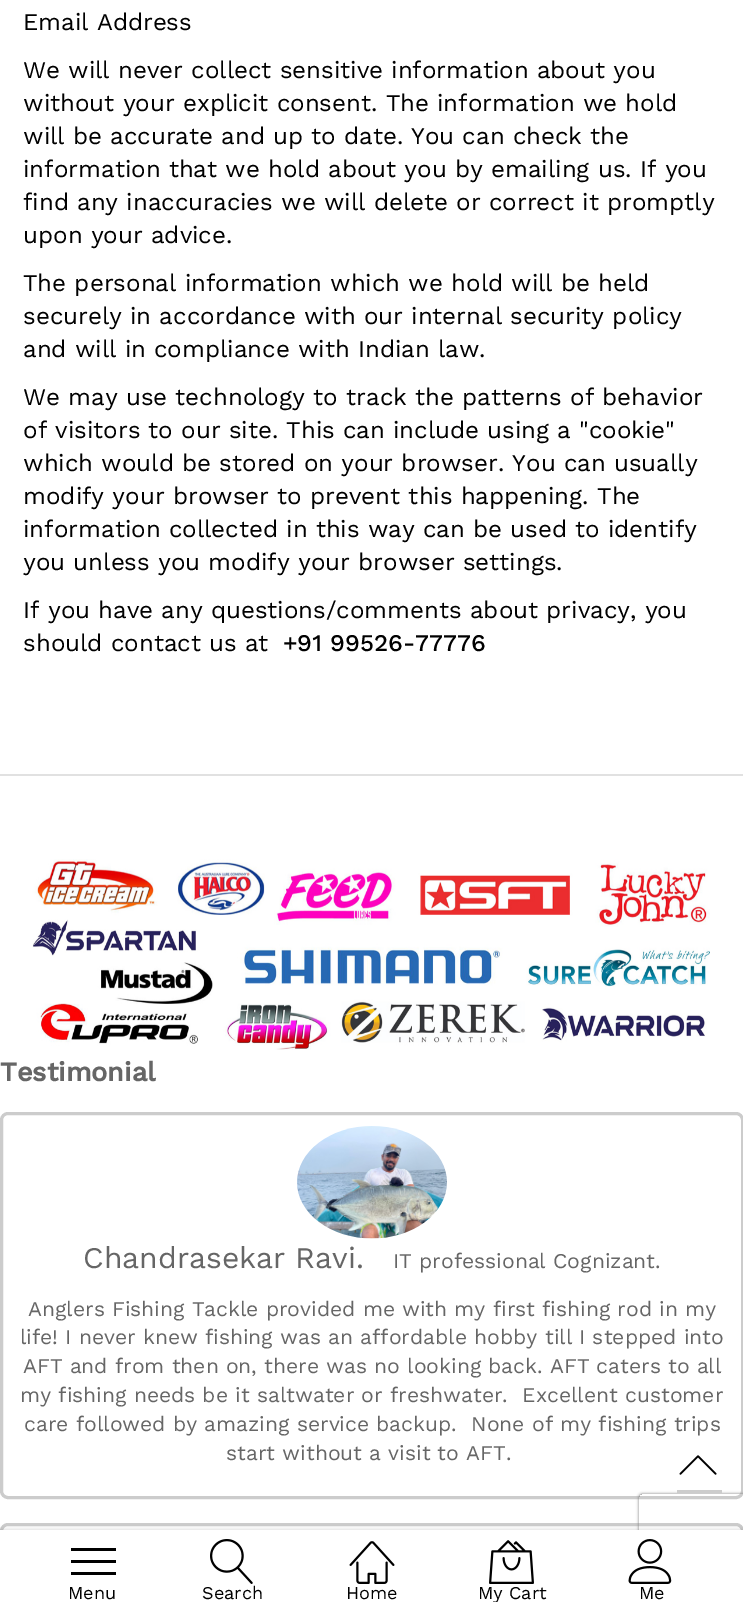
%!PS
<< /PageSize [743 1605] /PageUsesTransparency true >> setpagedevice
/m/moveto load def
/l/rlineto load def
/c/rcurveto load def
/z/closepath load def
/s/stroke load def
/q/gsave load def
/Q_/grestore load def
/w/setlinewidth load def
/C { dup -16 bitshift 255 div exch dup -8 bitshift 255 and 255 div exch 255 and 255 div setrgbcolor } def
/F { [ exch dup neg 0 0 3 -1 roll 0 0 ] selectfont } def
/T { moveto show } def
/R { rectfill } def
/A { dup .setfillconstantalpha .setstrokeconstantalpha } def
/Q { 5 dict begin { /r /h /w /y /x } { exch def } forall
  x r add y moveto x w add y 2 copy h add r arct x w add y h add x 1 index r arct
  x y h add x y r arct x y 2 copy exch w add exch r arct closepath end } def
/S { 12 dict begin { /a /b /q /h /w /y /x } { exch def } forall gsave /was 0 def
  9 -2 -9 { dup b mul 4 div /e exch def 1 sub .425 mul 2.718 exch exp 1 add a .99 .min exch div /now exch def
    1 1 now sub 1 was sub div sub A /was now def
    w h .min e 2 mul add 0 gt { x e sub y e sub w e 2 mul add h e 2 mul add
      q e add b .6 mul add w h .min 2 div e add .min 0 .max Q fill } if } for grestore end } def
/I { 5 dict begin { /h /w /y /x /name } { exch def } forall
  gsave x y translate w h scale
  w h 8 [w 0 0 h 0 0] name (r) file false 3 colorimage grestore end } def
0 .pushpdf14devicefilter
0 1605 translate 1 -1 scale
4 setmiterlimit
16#FFFFFF C
0 0 743 1605 R
/WorkSans-Regular 24 F
16#000000 C
(Email Address) 23 30 T
(We will never collect sensitive information about you) 23 78 T
(without your explicit consent. The information we hold) 23 111 T
(will be accurate and up to date. You can check the) 23 144 T
(information that we hold about you by emailing us. If you) 23 177 T
(find any inaccuracies we will delete or correct it promptly) 23 210 T
(upon your advice.) 23 243 T
(The personal information which we hold will be held) 23 291 T
(securely in accordance with our internal security policy) 23 324 T
(and will in compliance with Indian law.) 23 357 T
(We may use technology to track the patterns of behavior) 23 405 T
(of visitors to our site. This can include using a "cookie") 23 438 T
(which would be stored on your browser. You can usually) 23 471 T
(modify your browser to prevent this happening. The) 23 504 T
(information collected in this way can be used to identify) 23 537 T
(you unless you modify your browser settings.) 23 570 T
(If you have any questions/comments about privacy, you) 23 618 T
(should contact us at) 23 651 T
/WorkSans-Medium 24 F
(+91 99526-77776) 283 651 T
16#E1E1E1 C
0 774 743 2 R
(1.rgb) 32 859 678 191 I
/WorkSans-Bold 27 F
16#666666 C
(Testimonial) 0 1081 T
16#CCCCCC C
3 w
1.5 1113.5 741 384 6.5 Q s
(2.rgb) 297 1126 150 113 I
/WorkSans-Regular 30 F
16#666666 C
(Chandrasekar Ravi.) 83 1268 T
/WorkSans-Regular 21 F
(IT professional Cognizant.) 393 1268 T
(Anglers Fishing Tackle provided me with my first fishing rod in my) 28 1316 T
(life! I never knew fishing was an affordable hobby till I stepped into) 20 1344 T
(AFT and from then on, there was no looking back. AFT caters to all) 23 1373 T
(my fishing needs be it saltwater or freshwater.  Excellent customer) 20 1402 T
(care followed by amazing service backup.  None of my fishing trips) 24 1431 T
(start without a visit to AFT.) 226 1460 T
16#CCCCCC C
1.5 1524.5 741 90 6.5 Q s
q
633 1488 m 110 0 l 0 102 l -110 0 l z 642 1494 m 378 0 l 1.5 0 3 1.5 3 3 c 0 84 l 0 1.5 -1.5 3 -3 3 c -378 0 l -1.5 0 -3 -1.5 -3 -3 c 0 -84 l 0 -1.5 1.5 -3 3 -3 c z eoclip newpath
16#808080 C
639 1494 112 90 3 1.5 1 S
Q_
677 1490 45 3 R
(3.rgb) 679 1455 38 20 I
16#000000 C
0 1529 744 75 0 2 .12 S
16#FFFFFF C
0 1530 743 75 R
16#000000 C
71 1560 45 3 R
71 1548 45 3 R
71 1572 45 3 R
/WorkSans-Regular 18 F
(Menu) 68 1599 T
(4.rgb) 210 1539 43 45 I
(Search) 202 1599 T
(5.rgb) 349 1541 46 43 I
(Home) 346 1599 T
(6.rgb) 489 1540 45 44 I
q
443 1584 139 18 rectclip
(My Cart) 478 1599 T
Q_
(7.rgb) 628 1539 44 45 I
(Me) 639 1599 T
.poppdf14devicefilter showpage
